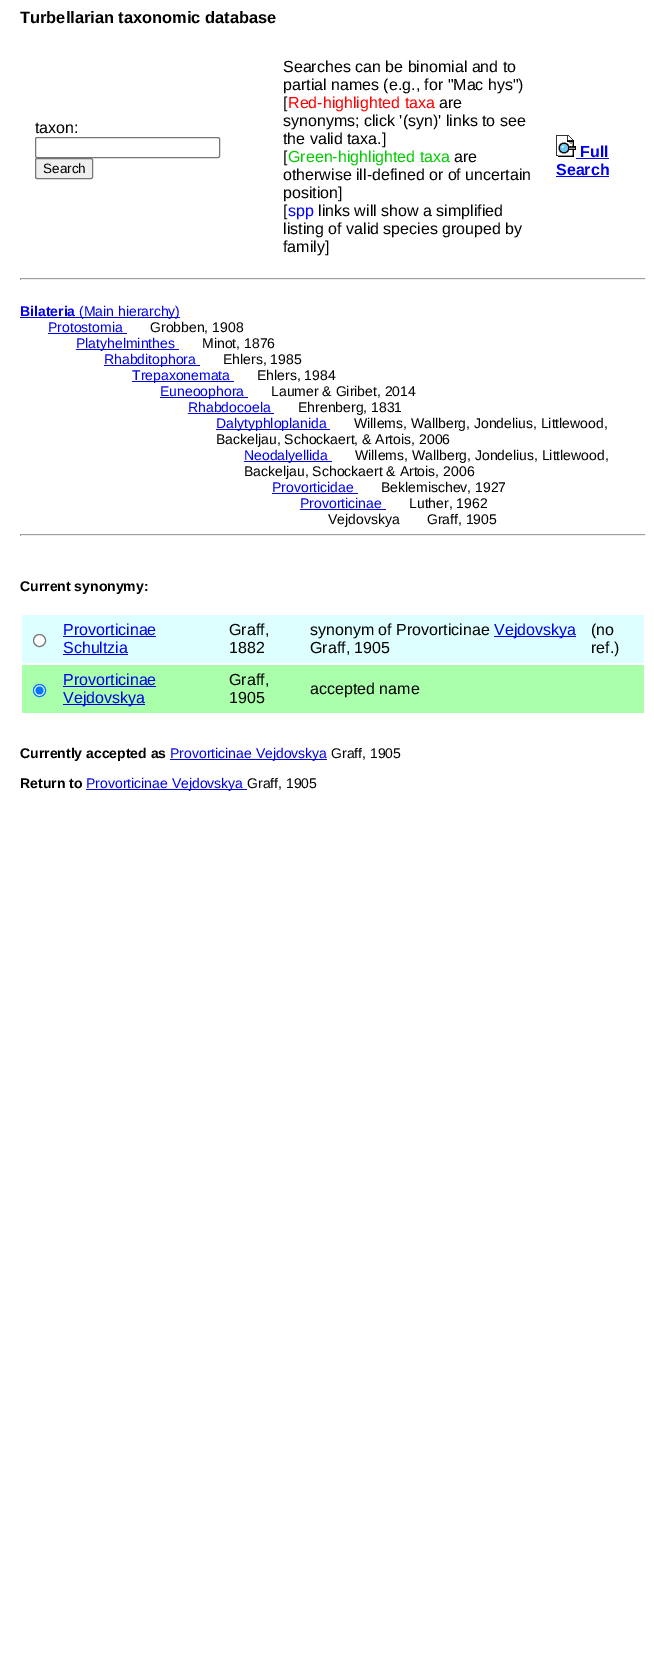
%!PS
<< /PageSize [654 1653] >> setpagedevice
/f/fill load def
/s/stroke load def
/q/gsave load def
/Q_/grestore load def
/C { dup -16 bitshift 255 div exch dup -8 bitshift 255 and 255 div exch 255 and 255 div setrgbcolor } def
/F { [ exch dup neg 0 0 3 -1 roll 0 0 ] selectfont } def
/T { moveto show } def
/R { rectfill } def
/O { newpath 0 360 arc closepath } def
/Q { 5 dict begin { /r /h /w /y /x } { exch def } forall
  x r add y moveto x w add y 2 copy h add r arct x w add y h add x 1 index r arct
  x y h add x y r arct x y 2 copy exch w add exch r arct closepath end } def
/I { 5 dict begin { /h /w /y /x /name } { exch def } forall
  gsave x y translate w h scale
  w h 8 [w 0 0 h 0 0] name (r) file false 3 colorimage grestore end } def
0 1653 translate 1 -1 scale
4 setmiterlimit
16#FFFFFF C
0 0 654 1653 R
/LiberationSans-Bold 16.4 F
16#000000 C
(Turbellarian taxonomic database) 20 23 T
/LiberationSans-Regular 16 F
(taxon:) 35 133 T
16#767676 C
35.5 137.5 184 20 1.5 Q s
16#EFEFEF C
35.5 158.5 57 20 1.5 Q q f Q_
16#767676 C
s
/LiberationSans-Regular 13.5 F
16#000000 C
(Search) 43 173 T
/LiberationSans-Regular 16 F
(Searches can be binomial and to) 283 72 T
(partial names \(e.g., for "Mac hys"\)) 283 90 T
([) 283 108 T
16#FF0000 C
(Red-highlighted taxa) 288 108 T
16#000000 C
(are) 439 108 T
(synonyms; click '\(syn\)' links to see) 283 126 T
(the valid taxa.]) 283 144 T
([) 283 162 T
16#00CC00 C
(Green-highlighted taxa) 288 162 T
16#000000 C
(are) 454 162 T
(otherwise ill-defined or of uncertain) 283 180 T
(position]) 283 198 T
([) 283 216 T
16#0000FF C
(spp) 288 216 T
16#000000 C
(links will show a simplified) 318 216 T
(listing of valid species grouped by) 283 234 T
(family]) 283 252 T
(1.rgb) 556 135 20 22 I
/LiberationSans-Bold 16 F
16#0000EE C
(Full) 580 157 T
576 158 33 1 R
(Search) 556 175 T
556 176 53 1 R
16#9F9F9F C
20 278 626 1 R
16#EEEEEE C
645 278 1 2 R
20 279 626 1 R
16#9F9F9F C
20 278 1 2 R
/LiberationSans-Bold 14 F
16#0000EE C
(Bilateria) 20 316 T
20 317 160 1 R
/LiberationSans-Regular 14 F
(\(Main hierarchy\)) 79 316 T
(Protostomia) 48 332 T
48 333 79 1 R
16#000000 C
(Grobben, 1908) 150 332 T
16#0000EE C
76 349 103 1 R
(Platyhelminthes) 76 348 T
16#000000 C
(Minot, 1876) 202 348 T
16#0000EE C
104 365 96 1 R
(Rhabditophora) 104 364 T
16#000000 C
(Ehlers, 1985) 223 364 T
16#0000EE C
132 381 102 1 R
(Trepaxonemata) 132 380 T
16#000000 C
(Ehlers, 1984) 257 380 T
16#0000EE C
160 397 88 1 R
(Euneoophora) 160 396 T
16#000000 C
(Laumer & Giribet, 2014) 271 396 T
16#0000EE C
(Rhabdocoela) 188 412 T
188 413 86 1 R
16#000000 C
(Ehrenberg, 1831) 298 412 T
16#0000EE C
216 429 114 1 R
(Dalytyphloplanida) 216 428 T
16#000000 C
(Willems, Wallberg, Jondelius, Littlewood,) 354 428 T
(Backeljau, Schockaert, & Artois, 2006) 216 444 T
16#0000EE C
244 461 88 1 R
(Neodalyellida) 244 460 T
16#000000 C
(Willems, Wallberg, Jondelius, Littlewood,) 355 460 T
(Backeljau, Schockaert & Artois, 2006) 244 476 T
16#0000EE C
(Provorticidae) 272 492 T
272 493 86 1 R
16#000000 C
(Beklemischev, 1927) 381 492 T
16#0000EE C
(Provorticinae) 300 508 T
300 509 86 1 R
16#000000 C
(Luther, 1962) 409 508 T
(Vejdovskya       Graff, 1905) 328 524 T
16#9F9F9F C
20 534 626 1 R
16#EEEEEE C
645 534 1 2 R
20 535 626 1 R
16#9F9F9F C
20 534 1 2 R
/LiberationSans-Bold 14 F
16#000000 C
(Current synonymy:) 20 591 T
16#DDFFFF C
22 615 622 48 R
16#FFFFFF C
39.5 640.5 6 O q f Q_
16#767676 C
s
/LiberationSans-Regular 16 F
16#0000EE C
(Provorticinae) 63 635 T
63 636 93 1 R
(Schultzia) 63 653 T
63 654 65 1 R
16#000000 C
(Graff,) 229 635 T
(1882) 229 653 T
(synonym of Provorticinae) 310 635 T
16#0000EE C
494 636 82 1 R
(Vejdovskya) 494 635 T
16#000000 C
(Graff, 1905) 310 653 T
(\(no) 591 635 T
(ref.\)) 591 653 T
16#AAFFAA C
22 665 622 48 R
16#FFFFFF C
39.5 690.5 6 O q f Q_
16#0075FF C
s
39.5 690.5 4 O f
16#0000EE C
(Provorticinae) 63 685 T
63 686 93 1 R
63 704 82 1 R
(Vejdovskya) 63 703 T
16#000000 C
(Graff,) 229 685 T
(1905) 229 703 T
(accepted name) 310 694 T
/LiberationSans-Bold 14 F
(Currently accepted as) 20 758 T
16#0000EE C
170 759 157 1 R
/LiberationSans-Regular 14 F
(Provorticinae Vejdovskya) 170 758 T
16#000000 C
(Graff, 1905) 331 758 T
/LiberationSans-Bold 14 F
(Return to) 20 788 T
16#0000EE C
86 789 161 1 R
/LiberationSans-Regular 14 F
(Provorticinae Vejdovskya) 86 788 T
16#000000 C
(Graff, 1905) 247 788 T
showpage
